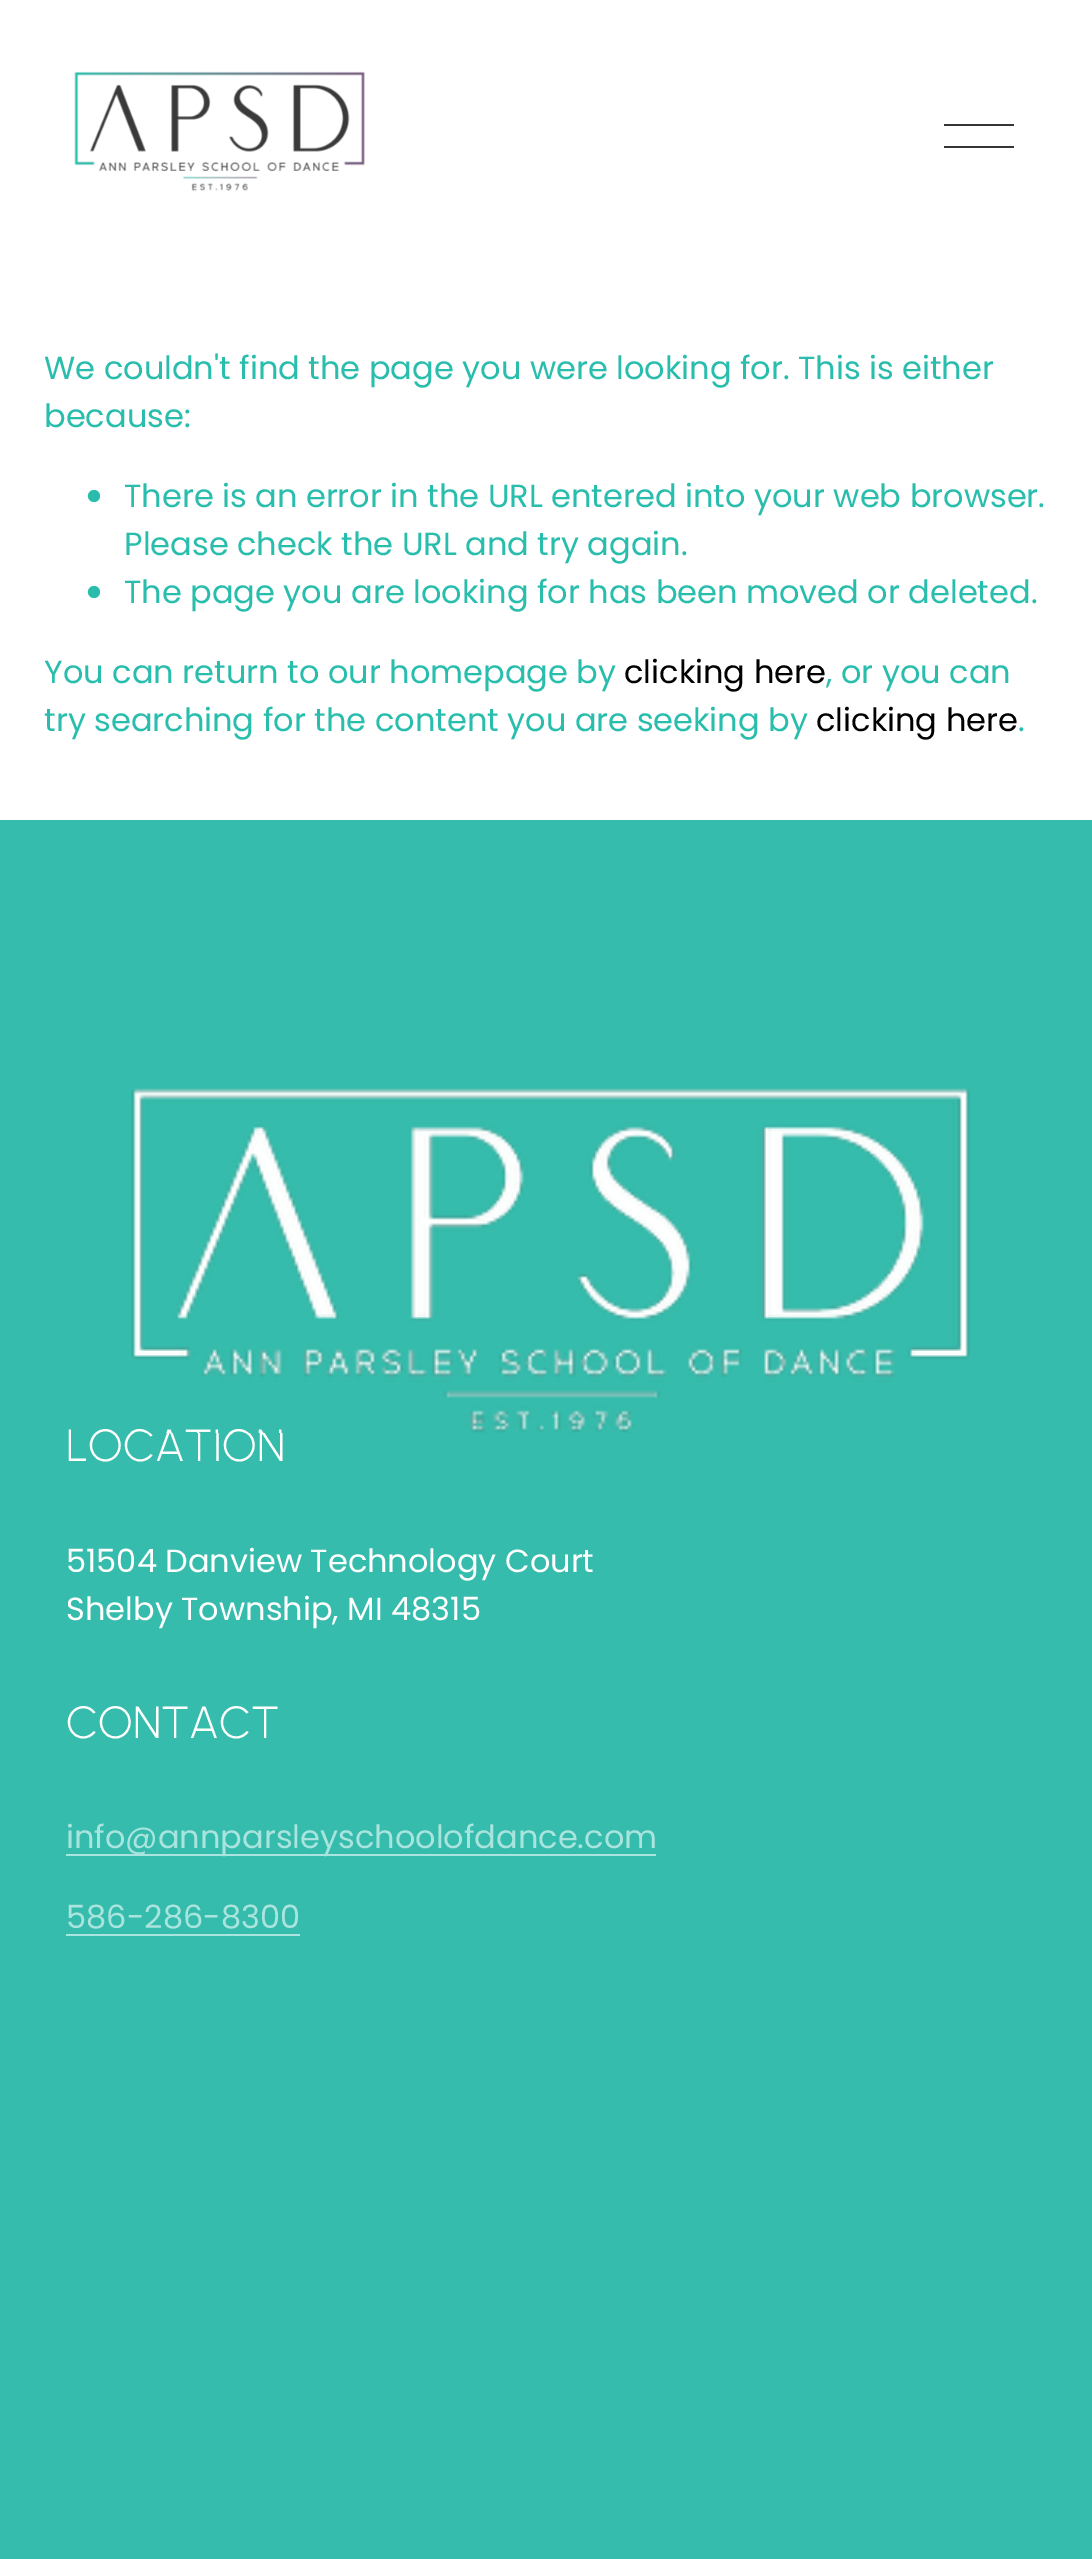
%!PS
<< /PageSize [1092 2559] >> setpagedevice
/f/fill load def
/C { dup -16 bitshift 255 div exch dup -8 bitshift 255 and 255 div exch 255 and 255 div setrgbcolor } def
/F { [ exch dup neg 0 0 3 -1 roll 0 0 ] selectfont } def
/T { moveto show } def
/R { rectfill } def
/O { newpath 0 360 arc closepath } def
/I { 5 dict begin { /h /w /y /x /name } { exch def } forall
  gsave x y translate w h scale
  w h 8 [w 0 0 h 0 0] name (r) file false 3 colorimage grestore end } def
0 2559 translate 1 -1 scale
4 setmiterlimit
16#FFFFFF C
0 0 1092 2559 R
(1.rgb) 74 71 291 120 I
16#373637 C
944 124 70 2 R
944 146 70 2 R
/Poppins-Regular 32 F
16#28BDAC C
(We couldn't find the page you were looking for. This is either) 44 379 T
(because:) 44 427 T
94 496 6 O f
(There is an error in the URL entered into your web browser.) 124 507 T
(Please check the URL and try again.) 124 555 T
94 592 6 O f
(The page you are looking for has been moved or deleted.) 124 603 T
(You can return to our homepage by) 44 683 T
16#000000 C
(clicking here) 624 683 T
16#28BDAC C
(, or you can) 826 683 T
(try searching for the content you are seeking by) 44 731 T
16#000000 C
(clicking here) 816 731 T
16#28BDAC C
(.) 1018 731 T
16#36BCAC C
0 820 1092 1739 R
/Urbanist-Light 45 F
16#FFFFFF C
(LOCATION) 66 1461 T
(2.rgb) 131 1088 839 345 I
/Poppins-Regular 32 F
(51504 Danview Technology Court) 66 1572 T
(Shelby Township, MI 48315) 66 1620 T
/Urbanist-Light 45 F
(CONTACT) 66 1738 T
16#AAE4DE C
66 1854 590 2 R
/Poppins-Regular 32 F
(info@annparsleyschoolofdance.com) 66 1848 T
(586-286-8300) 66 1928 T
66 1934 234 2 R
showpage
